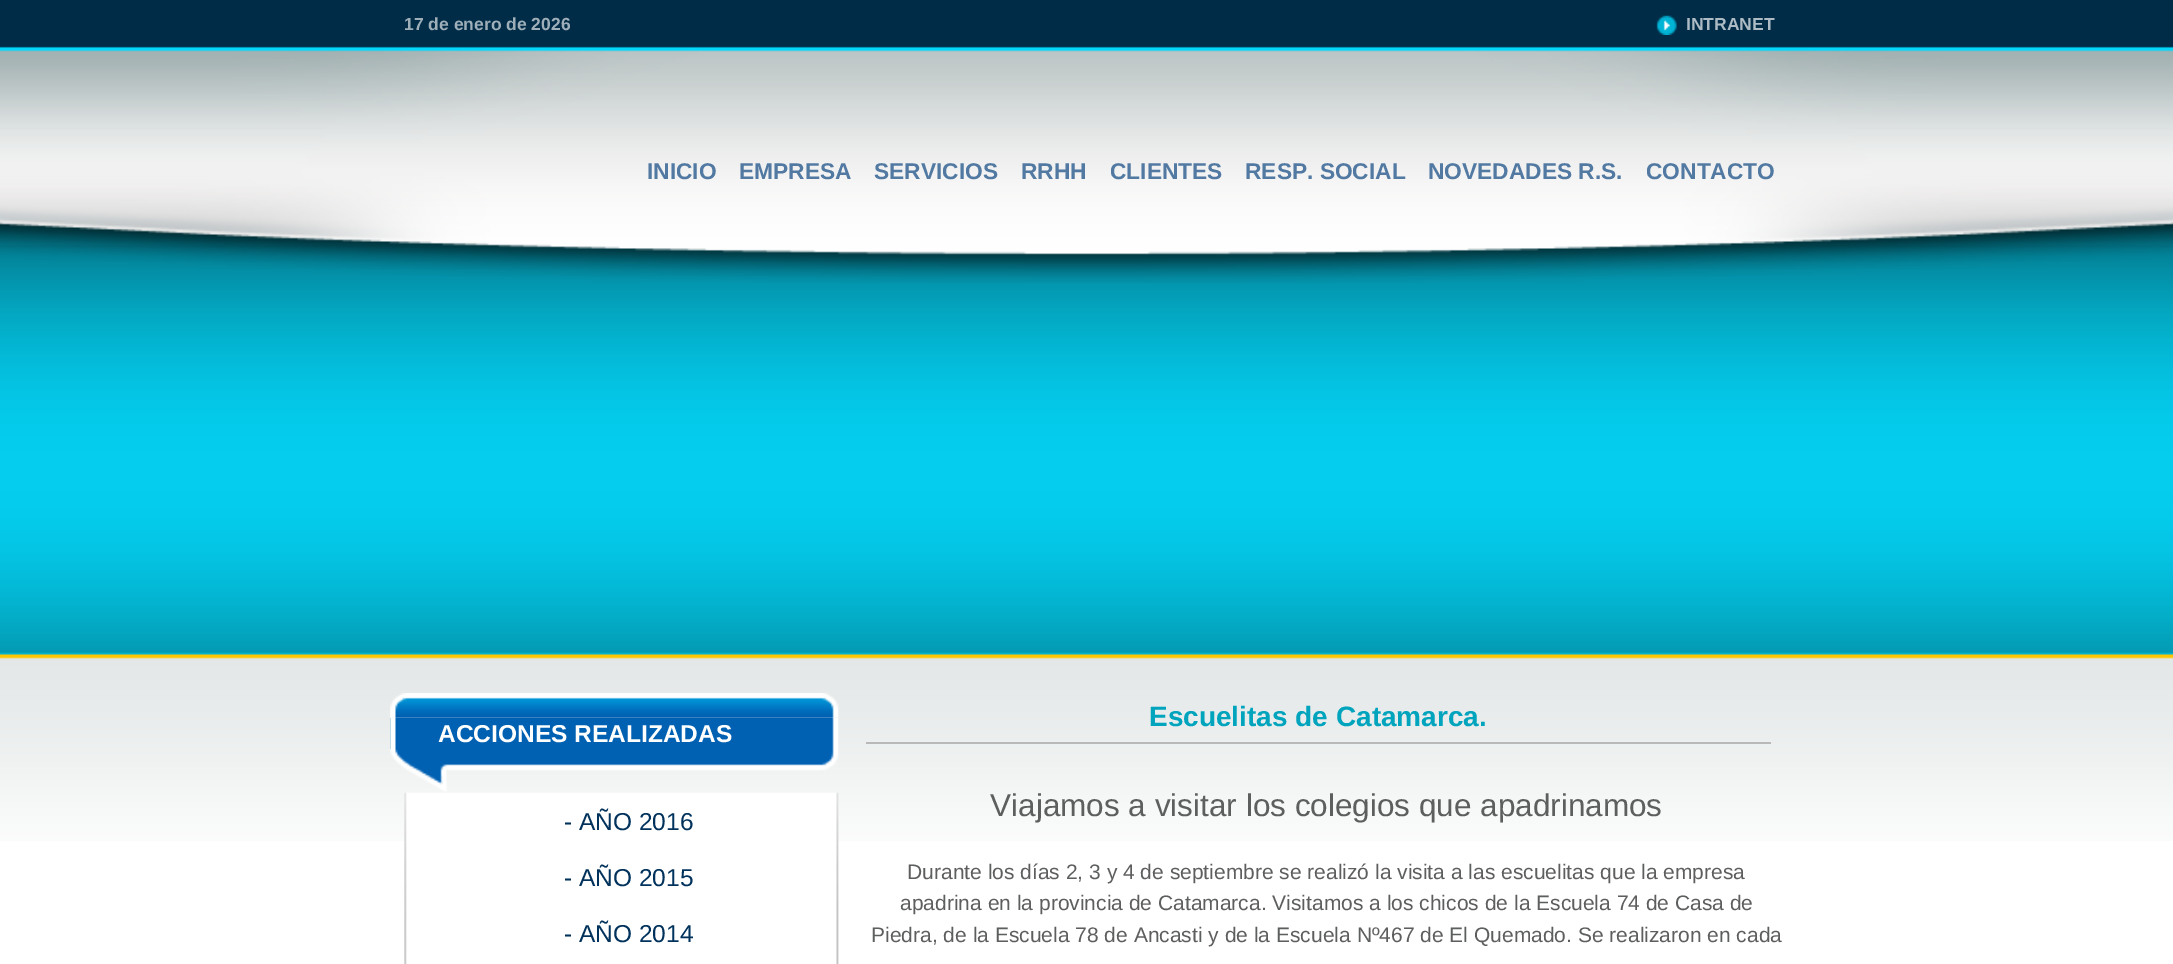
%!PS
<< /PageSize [2173 964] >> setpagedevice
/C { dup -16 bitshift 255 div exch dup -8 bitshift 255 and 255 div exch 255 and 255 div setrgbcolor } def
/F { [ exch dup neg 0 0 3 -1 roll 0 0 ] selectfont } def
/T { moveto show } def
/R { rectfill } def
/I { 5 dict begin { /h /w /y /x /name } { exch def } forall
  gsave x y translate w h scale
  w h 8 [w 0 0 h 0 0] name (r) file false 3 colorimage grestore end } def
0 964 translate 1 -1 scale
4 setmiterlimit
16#FFFFFF C
0 0 2173 964 R
(1.rgb) 0 0 2173 841 I
(2.rgb) 0 221 2173 24 I
(3.rgb) 0 50 2173 233 I
/LiberationSans-Bold 17.5 F
16#9EAFB9 C
(17 de enero de 2026) 404 30 T
(4.rgb) 1656 15 21 20 I
16#ADBBC4 C
(INTRANET) 1686 30 T
/LiberationSans-Bold 22.75 F
16#5179A2 C
(INICIO) 647 179 T
(EMPRESA) 739 179 T
(SERVICIOS) 874 179 T
(RRHH) 1021 179 T
(CLIENTES) 1110 179 T
(RESP. SOCIAL) 1245 179 T
(NOVEDADES R.S.) 1428 179 T
(CONTACTO) 1646 179 T
(5.rgb) 390 693 449 25 I
(6.rgb) 390 717 449 32 I
/LiberationSans-Bold 24.5 F
16#FFFFFF C
(ACCIONES REALIZADAS) 438 742 T
(7.rgb) 390 749 449 43 I
(8.rgb) 404 792 435 172 I
/LiberationSans-Regular 24.5 F
16#00325C C
(- AÑO 2016) 564 830 T
(- AÑO 2015) 564 886 T
(- AÑO 2014) 564 942 T
16#B9B9B9 C
866 742 905 2 R
/LiberationSans-Bold 28 F
16#00A4BD C
(Escuelitas de Catamarca.) 1149 726 T
/LiberationSans-Regular 31.5 F
16#5D5E5E C
(Viajamos a visitar los colegios que apadrinamos) 990 816 T
/LiberationSans-Regular 21 F
(Durante los días 2, 3 y 4 de septiembre se realizó la visita a las escuelitas que la empresa) 907 879 T
(apadrina en la provincia de Catamarca. Visitamos a los chicos de la Escuela 74 de Casa de) 900 910 T
(Piedra, de la Escuela 78 de Ancasti y de la Escuela Nº467 de El Quemado. Se realizaron en cada) 871 942 T
showpage
